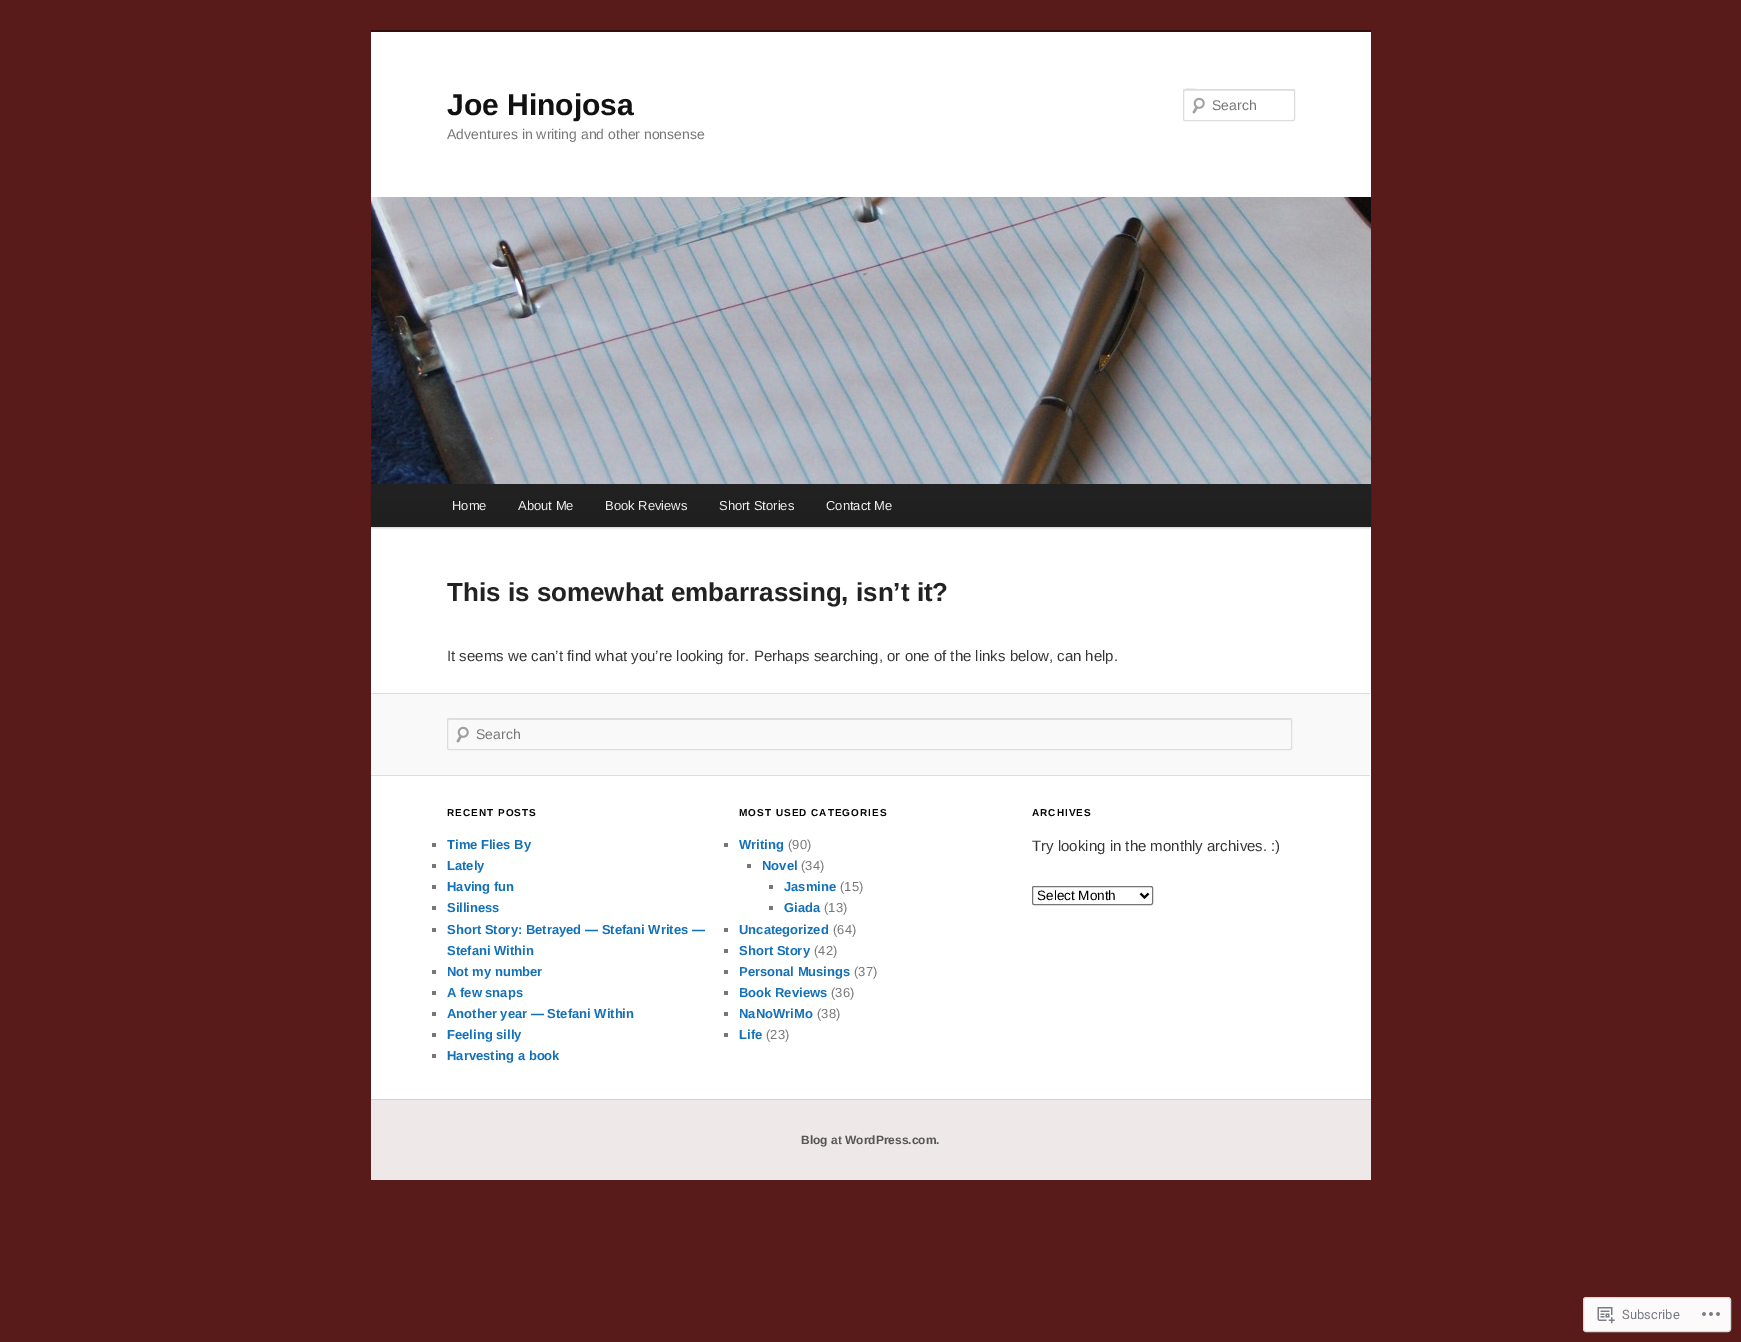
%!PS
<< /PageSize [1741 1342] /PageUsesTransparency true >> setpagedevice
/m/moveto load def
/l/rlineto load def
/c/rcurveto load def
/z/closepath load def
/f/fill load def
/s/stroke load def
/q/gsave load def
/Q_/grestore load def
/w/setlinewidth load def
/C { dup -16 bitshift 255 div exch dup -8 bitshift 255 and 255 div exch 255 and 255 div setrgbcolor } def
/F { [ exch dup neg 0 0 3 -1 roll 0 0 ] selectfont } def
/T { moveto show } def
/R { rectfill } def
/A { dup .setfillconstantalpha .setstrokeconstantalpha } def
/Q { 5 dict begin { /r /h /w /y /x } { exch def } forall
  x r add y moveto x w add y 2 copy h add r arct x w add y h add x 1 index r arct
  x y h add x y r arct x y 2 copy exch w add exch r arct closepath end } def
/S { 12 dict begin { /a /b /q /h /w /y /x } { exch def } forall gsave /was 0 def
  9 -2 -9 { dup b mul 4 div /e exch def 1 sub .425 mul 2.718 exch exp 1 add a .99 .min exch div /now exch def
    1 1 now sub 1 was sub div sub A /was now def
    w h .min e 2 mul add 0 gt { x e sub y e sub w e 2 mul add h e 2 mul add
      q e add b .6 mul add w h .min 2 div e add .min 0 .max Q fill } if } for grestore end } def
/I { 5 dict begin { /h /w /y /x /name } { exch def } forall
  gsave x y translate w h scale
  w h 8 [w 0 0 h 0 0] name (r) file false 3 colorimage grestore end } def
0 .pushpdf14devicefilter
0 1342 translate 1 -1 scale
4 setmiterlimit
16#591A1A C
0 0 1741 1342 R
16#FFFFFF C
371 32 1000 1067 R
16#330E0E C
371 30 1000 2 R
/LiberationSans-Bold 30 F
16#111111 C
(Joe Hinojosa) 447 115 T
/LiberationSans-Regular 14 F
16#777777 C
(Adventures in writing and other nonsense) 447 139 T
(1.rgb) 1192 97 13 17 I
16#E6E6E6 C
1185 91 m 109 0 l 0 1 l -1 -2 l -90 0 l -4 0 -19 -5 -19 2 c 0 -1 0 -1 1 -1 c z f
16#DDDDDD C
1183.5 89.5 111 31 1.5 Q s
16#777777 C
(Search) 1212 110 T
16#000000 C
371 485 1000 43 0 1 .2 S
(2.rgb) 371 197 1000 287 I
q 371 484 m 1000 0 l 0 43 l -1000 0 l z clip newpath
<< /ShadingType 2 /ColorSpace /DeviceRGB /Coords [871 484 871 527] /Extend [true true] /Function << /FunctionType 2 /Domain [0 1] /C0 [.133 .133 .133] /C1 [.122 .122 .122] /N 1 >> >> shfill Q_
/LiberationSans-Regular 13 F
16#EEEEEE C
(Home) 452 510 T
(About Me) 518 510 T
(Book Reviews) 605 510 T
(Short Stories) 719 510 T
(Contact Me) 826 510 T
/LiberationSans-Bold 26 F
16#222222 C
(This is somewhat embarrassing, isn’t it?) 447 601 T
/LiberationSans-Regular 15 F
16#373737 C
(It seems we can’t find what you’re looking for. Perhaps searching, or one of the links below, can help.) 447 661 T
16#F9F9F9 C
371 694 999 81 R
16#DDDDDD C
371 693 999 1 R
371 775 999 1 R
(3.rgb) 456 726 13 17 I
16#E0E0E0 C
449 720 m 841 0 l 1 0 1 0 1 1 c 0 -1 l -1 -1 l -841 0 l -1 1 l 0 1 l 0 -1 0 -1 1 -1 c z f
16#DDDDDD C
447.5 718.5 844 31 1.5 Q s
/LiberationSans-Regular 14 F
16#777777 C
(Search) 476 739 T
/LiberationSans-Bold 10 F
16#000000 C
447 816 m 1 0 (RECENT POSTS) ashow
16#777777 C
432 843 4 4 R
/LiberationSans-Bold 13 F
16#1470B7 C
(Time Flies By) 447 849 T
16#777777 C
432 864 4 4 R
16#1470B7 C
(Lately) 447 870 T
16#777777 C
432 885 4 4 R
16#1470B7 C
(Having fun) 447 891 T
16#777777 C
432 906 4 4 R
16#1470B7 C
(Silliness) 447 912 T
16#777777 C
432 928 4 4 R
16#1470B7 C
(Short Story: Betrayed — Stefani Writes —) 447 934 T
(Stefani Within) 447 955 T
16#777777 C
432 970 4 4 R
16#1470B7 C
(Not my number) 447 976 T
16#777777 C
432 991 4 4 R
16#1470B7 C
(A few snaps) 447 997 T
16#777777 C
432 1012 4 4 R
16#1470B7 C
(Another year — Stefani Within) 447 1018 T
16#777777 C
432 1033 4 4 R
16#1470B7 C
(Feeling silly) 447 1039 T
16#777777 C
432 1054 4 4 R
16#1470B7 C
(Harvesting a book) 447 1060 T
/LiberationSans-Bold 10 F
16#000000 C
739 816 m 1 0 (MOST USED CATEGORIES) ashow
16#777777 C
724 843 4 4 R
/LiberationSans-Bold 13 F
16#1470B7 C
(Writing) 739 849 T
/LiberationSans-Regular 13 F
16#777777 C
(\(90\)) 788 849 T
747 864 4 4 R
/LiberationSans-Bold 13 F
16#1470B7 C
(Novel) 762 870 T
/LiberationSans-Regular 13 F
16#777777 C
(\(34\)) 801 870 T
769 885 4 4 R
/LiberationSans-Bold 13 F
16#1470B7 C
(Jasmine) 784 891 T
/LiberationSans-Regular 13 F
16#777777 C
(\(15\)) 840 891 T
769 906 4 4 R
/LiberationSans-Bold 13 F
16#1470B7 C
(Giada) 784 912 T
/LiberationSans-Regular 13 F
16#777777 C
(\(13\)) 824 912 T
724 928 4 4 R
/LiberationSans-Bold 13 F
16#1470B7 C
(Uncategorized) 739 934 T
/LiberationSans-Regular 13 F
16#777777 C
(\(64\)) 833 934 T
724 949 4 4 R
/LiberationSans-Bold 13 F
16#1470B7 C
(Short Story) 739 955 T
/LiberationSans-Regular 13 F
16#777777 C
(\(42\)) 814 955 T
724 970 4 4 R
/LiberationSans-Bold 13 F
16#1470B7 C
(Personal Musings) 739 976 T
/LiberationSans-Regular 13 F
16#777777 C
(\(37\)) 854 976 T
724 991 4 4 R
/LiberationSans-Bold 13 F
16#1470B7 C
(Book Reviews) 739 997 T
/LiberationSans-Regular 13 F
16#777777 C
(\(36\)) 831 997 T
724 1012 4 4 R
/LiberationSans-Bold 13 F
16#1470B7 C
(NaNoWriMo) 739 1018 T
/LiberationSans-Regular 13 F
16#777777 C
(\(38\)) 817 1018 T
724 1033 4 4 R
/LiberationSans-Bold 13 F
16#1470B7 C
(Life) 739 1039 T
/LiberationSans-Regular 13 F
16#777777 C
(\(23\)) 766 1039 T
/LiberationSans-Bold 10 F
16#000000 C
1032 816 m 1 0 (ARCHIVES) ashow
/LiberationSans-Regular 15 F
16#373737 C
(Try looking in the monthly archives. :\)) 1032 851 T
16#767676 C
1032.5 886.5 120 18 1.5 Q s
16#000000 C
2 w
1140.5 893.5 m 4 4 l 4 -4 l s
/LiberationSans-Regular 13.5 F
(Select Month) 1037 900 T
16#EFE8E8 C
371 1100 1000 80 R
16#D7D1D1 C
371 1099 1000 1 R
/LiberationSans-Bold 12 F
16#555555 C
(Blog at WordPress.com.) 801 1144 T
16#FCFAFA C
1583.5 1297.5 147 34 2.5 Q q f Q_
16#D9D8DA C
1 w
s
(4.rgb) 1597 1307 18 17 I
/Roboto-Regular 13 F
16#777A80 C
(Subscribe) 1622 1319 T
(5.rgb) 1702 1312 18 4 I
.poppdf14devicefilter showpage
